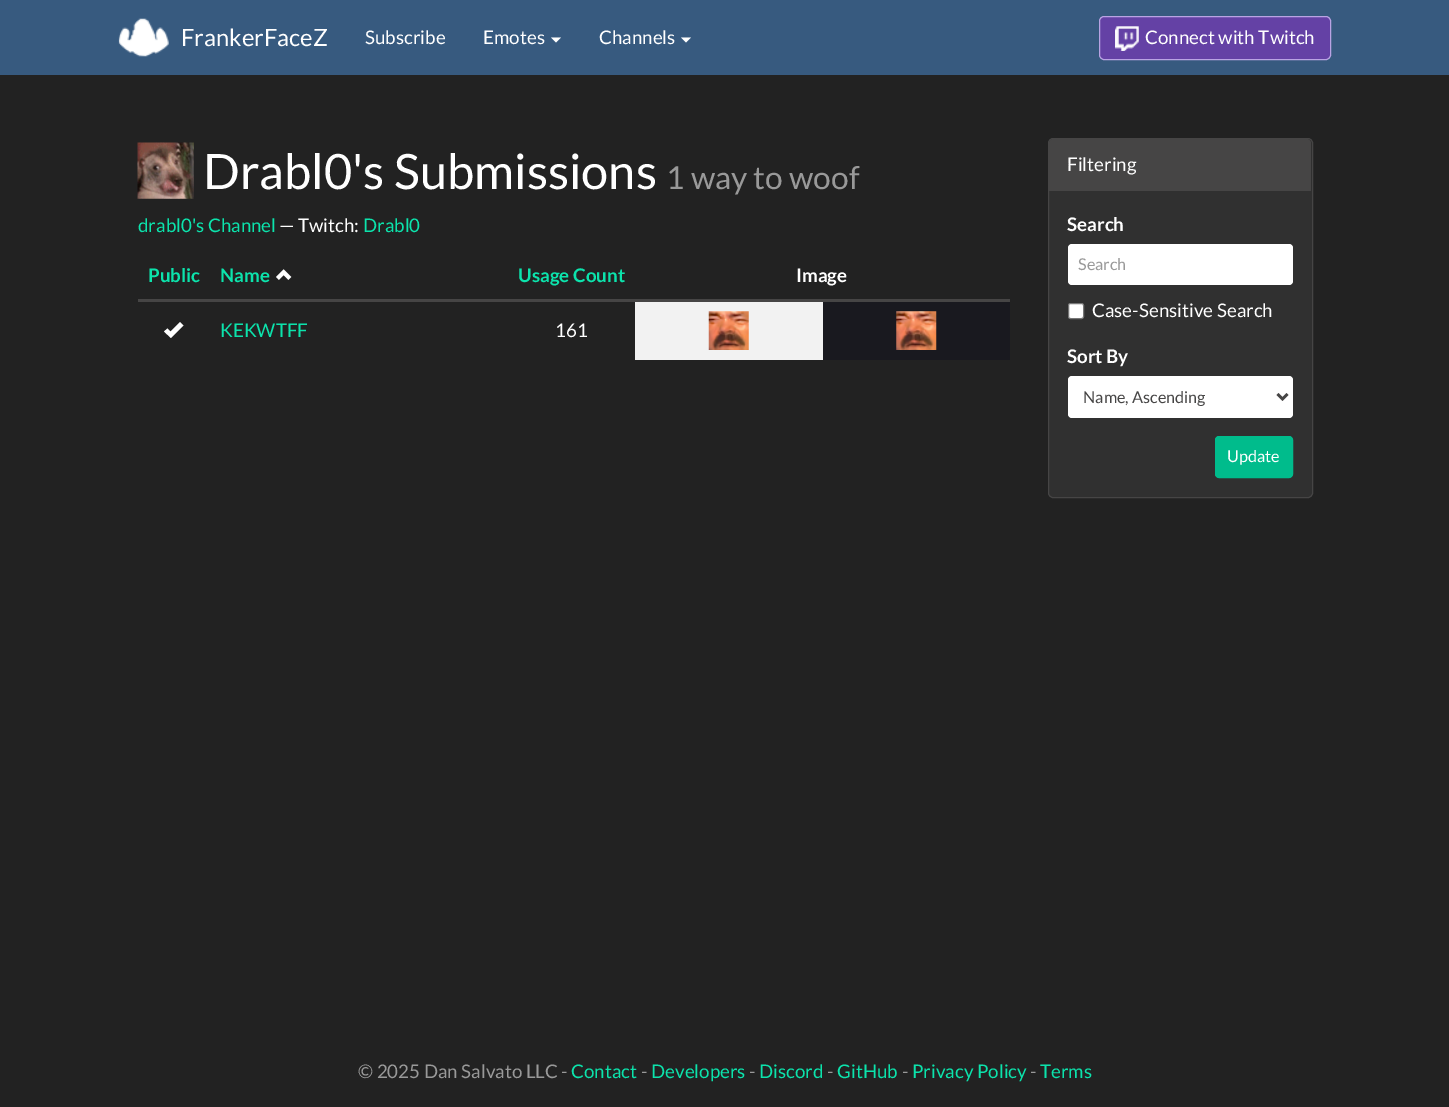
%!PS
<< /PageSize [1449 1107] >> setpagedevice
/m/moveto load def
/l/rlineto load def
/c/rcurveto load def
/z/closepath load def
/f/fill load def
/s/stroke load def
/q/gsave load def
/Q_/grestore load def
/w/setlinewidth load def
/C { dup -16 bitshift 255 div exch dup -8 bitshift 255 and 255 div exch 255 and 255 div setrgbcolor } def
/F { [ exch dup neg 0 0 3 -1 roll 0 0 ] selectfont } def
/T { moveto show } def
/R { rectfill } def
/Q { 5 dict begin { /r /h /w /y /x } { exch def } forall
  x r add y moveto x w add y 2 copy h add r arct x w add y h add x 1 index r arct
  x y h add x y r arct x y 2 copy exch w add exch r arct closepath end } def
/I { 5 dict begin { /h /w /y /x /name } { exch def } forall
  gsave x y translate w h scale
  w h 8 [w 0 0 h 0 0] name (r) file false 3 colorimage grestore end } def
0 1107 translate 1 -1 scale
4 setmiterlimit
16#222222 C
0 0 1449 1107 R
16#375A7F C
0 0 1449 75 R
(1.rgb) 118 18 51 39 I
/Lato-Regular 23.75 F
16#FFFFFF C
(FrankerFaceZ) 181 46 T
/Lato-Regular 18.75 F
(Subscribe) 365 44 T
(Emotes) 483 44 T
551 37.5 m 10 0 l -5 5 l z f
(Channels) 599 44 T
681 37.5 m 10 0 l -5 5 l z f
16#6441A5 C
1099.5 16.5 231 43 4.5 Q q f Q_
16#B9A3E3 C
s
(2.rgb) 1115 26 24 25 I
16#FFFFFF C
(Connect with Twitch) 1145 44 T
(3.rgb) 137 142 57 57 I
/Lato-Regular 48.75 F
(Drabl0's Submissions) 203 189 T
/Lato-Regular 31.75 F
16#999999 C
(1 way to woof) 666 189 T
/Lato-Regular 18.75 F
16#0CE3AC C
(drabl0's Channel) 138 232 T
16#FFFFFF C
(— Twitch:) 279 232 T
16#0CE3AC C
(Drabl0) 363 232 T
/Lato-Bold 18.75 F
(Public) 148 282 T
(Name) 220 282 T
(4.rgb) 276 269 16 11 I
(Usage Count) 518 282 T
16#464545 C
138 299 872 3 R
16#FFFFFF C
(Image) 796 282 T
164 331.5 m 7 6.5 l 12.5 -12.5 l -3.5 -3.5 l -9.5 9.5 l -3 -3 l z f
/Lato-Regular 18.75 F
16#0CE3AC C
(KEKWTFF) 220 337 T
16#FFFFFF C
(161) 555 337 T
16#F2F2F2 C
635 302 188 58 R
(5.rgb) 708 311 41 39 I
16#19191F C
823 302 187 58 R
(6.rgb) 896 311 41 39 I
16#303030 C
1048.5 138.5 264 359 4.5 Q q f Q_
16#464545 C
s
1053 139 m 254 0 l 2 0 4 2 4 4 c 0 48 l -262 0 l 0 -48 l 0 -2 2 -4 4 -4 c z f
16#FFFFFF C
(Filtering) 1067 171 T
/Lato-Bold 18.75 F
(Search) 1067 231 T
1068 244 225 41 4 Q f
/Lato-Regular 16.25 F
16#999999 C
(Search) 1078 270 T
16#FFFFFF C
1068.5 303.5 15 15 2 Q q f Q_
16#767676 C
s
/Lato-Regular 18.75 F
16#FFFFFF C
(Case-Sensitive Search) 1092 317 T
/Lato-Bold 18.75 F
(Sort By) 1067 363 T
1068 376 225 42 4 Q f
16#464545 C
2.5 w
1277.5 394 m 5 5 l 5 -5 l s
/Lato-Regular 16.25 F
(Name, Ascending) 1083 403 T
16#00BC8C C
1215.5 436.5 77 41 3.5 Q q f Q_
1 w
s
16#FFFFFF C
(Update) 1227 462 T
/Lato-Regular 18.75 F
16#999999 C
(© 2025 Dan Salvato LLC -) 358 1078 T
16#0CE3AC C
(Contact) 571 1078 T
16#999999 C
(-) 641 1078 T
16#0CE3AC C
(Developers) 651 1078 T
16#999999 C
(-) 749 1078 T
16#0CE3AC C
(Discord) 759 1078 T
16#999999 C
(-) 827 1078 T
16#0CE3AC C
(GitHub) 837 1078 T
16#999999 C
(-) 902 1078 T
16#0CE3AC C
(Privacy Policy) 912 1078 T
16#999999 C
(-) 1030 1078 T
16#0CE3AC C
(Terms) 1040 1078 T
showpage
